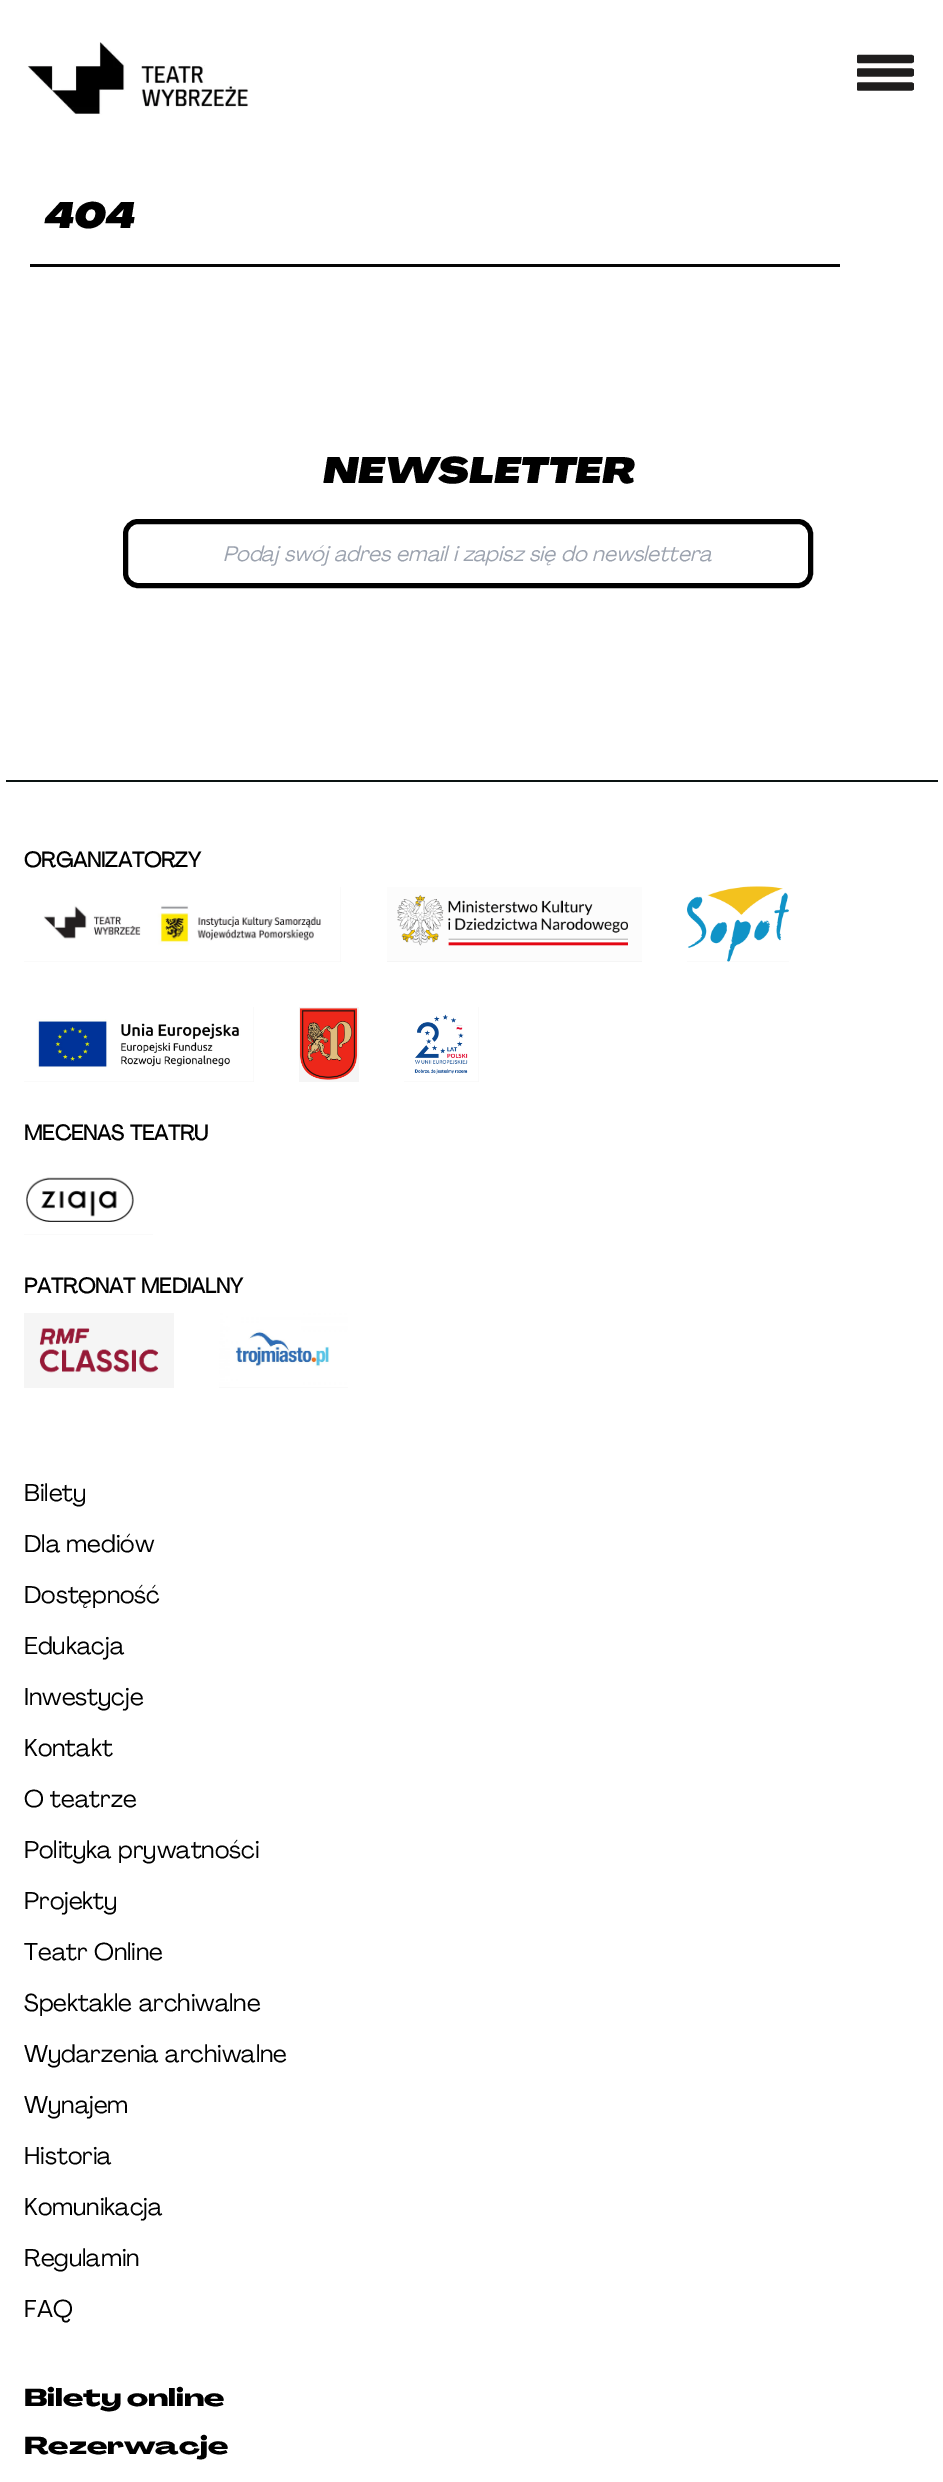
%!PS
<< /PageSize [943 2482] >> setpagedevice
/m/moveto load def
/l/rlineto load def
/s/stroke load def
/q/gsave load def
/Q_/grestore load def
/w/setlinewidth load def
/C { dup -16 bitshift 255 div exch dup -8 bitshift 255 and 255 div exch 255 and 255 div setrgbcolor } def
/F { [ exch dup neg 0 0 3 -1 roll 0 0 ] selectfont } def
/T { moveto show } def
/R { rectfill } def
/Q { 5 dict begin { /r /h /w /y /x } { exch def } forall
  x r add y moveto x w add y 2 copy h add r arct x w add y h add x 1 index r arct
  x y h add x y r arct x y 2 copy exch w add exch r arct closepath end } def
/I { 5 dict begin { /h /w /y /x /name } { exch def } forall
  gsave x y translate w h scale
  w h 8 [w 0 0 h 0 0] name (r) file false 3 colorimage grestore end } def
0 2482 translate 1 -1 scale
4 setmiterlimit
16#FFFFFF C
0 0 943 2482 R
(1.rgb) 27 42 222 73 I
q
857 41 57 57 rectclip
16#1F1E1E C
8.3 w
1 setlinecap
859 59 m 52 0 l 859 72.5 m 52 0 l 859 86.5 m 52 0 l s
Q_
16#050505 C
30 264 810 3 R
/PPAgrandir-BlackItalic 36 F
16#000000 C
(404) 45 228 T
(NEWSLETTER) 323 483 T
5 w
125.5 521.5 685 64 12.5 Q s
/PPAgrandir-Italic 21 F
16#9CA3AF C
(Podaj swój adres email i zapisz się do newslettera) 223 561 T
16#0C1413 C
6 780 932 2 R
/PPAgrandir-Bold 21 F
16#000000 C
(ORGANIZATORZY) 24 867 T
16#F5F5F5 C
24 887 317 75 R
(2.rgb) 24 887 317 75 I
387 961 255 1 R
(3.rgb) 387 887 255 74 I
687 961 102 1 R
(4.rgb) 687 886 102 76 I
24 1007 230 75 R
(5.rgb) 24 1007 230 75 I
299 1007 60 75 R
(6.rgb) 299 1008 59 72 I
404 1007 75 75 R
(7.rgb) 404 1007 75 75 I
16#000000 C
(MECENAS TEATRU) 24 1140 T
16#F5F5F5 C
24 1234 129 1 R
(8.rgb) 24 1160 129 75 I
16#000000 C
(PATRONAT MEDIALNY) 24 1293 T
16#F5F5F5 C
24 1313 150 75 R
(9.rgb) 39 1328 120 45 I
219 1387 129 1 R
(10.rgb) 219 1313 129 75 I
/PPAgrandir-Regular 24 F
16#000000 C
(Bilety) 24 1501 T
(Dla mediów) 24 1552 T
(Dostępność) 24 1603 T
(Edukacja) 24 1654 T
(Inwestycje) 24 1705 T
(Kontakt) 24 1756 T
(O teatrze) 24 1807 T
(Polityka prywatności) 24 1858 T
(Projekty) 24 1909 T
(Teatr Online) 24 1960 T
(Spektakle archiwalne) 24 2011 T
(Wydarzenia archiwalne) 24 2062 T
(Wynajem) 24 2113 T
(Historia) 24 2164 T
(Komunikacja) 24 2215 T
(Regulamin) 24 2266 T
(FAQ) 24 2317 T
/PPAgrandir-Black 24 F
(Bilety online) 24 2406 T
(Rezerwacje) 24 2454 T
showpage
